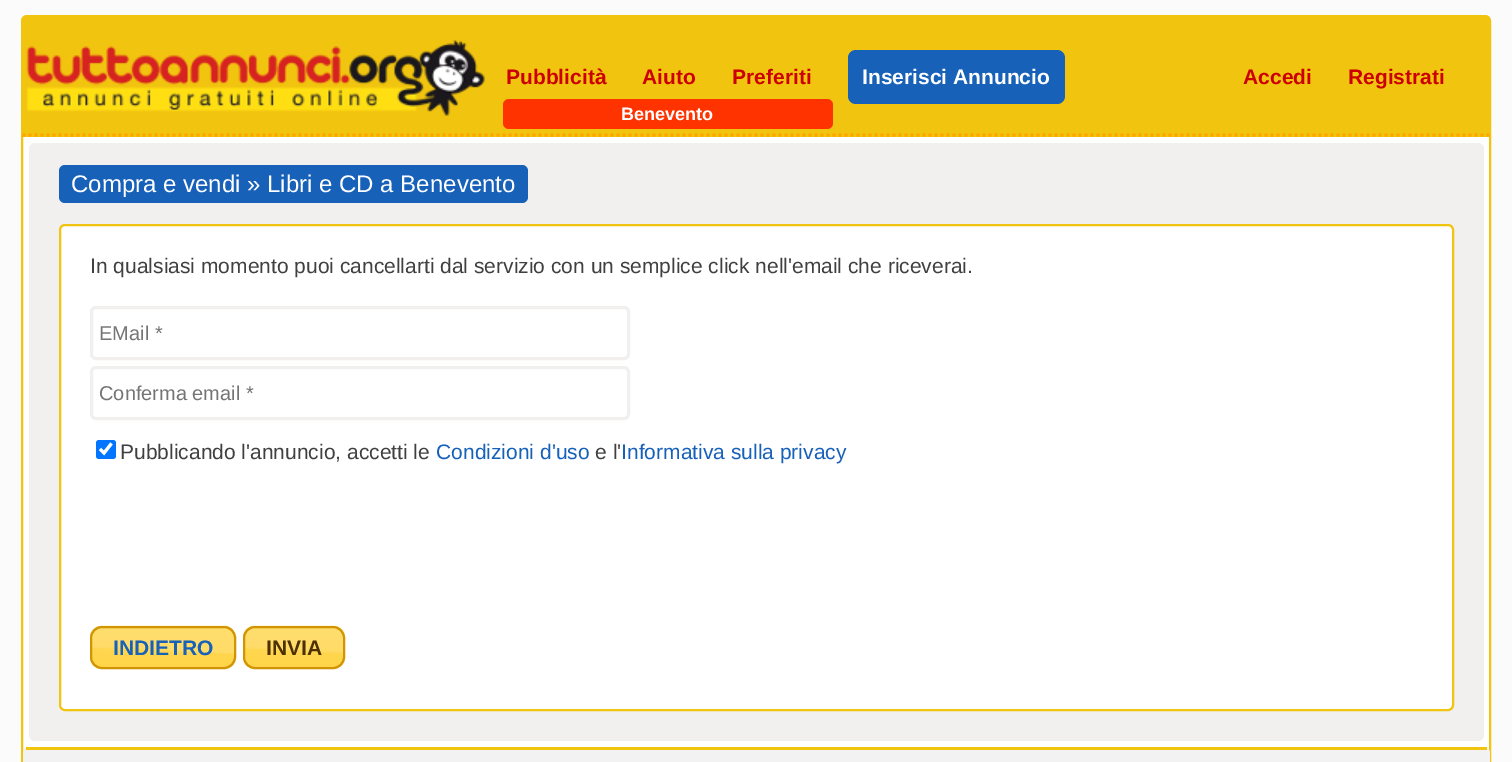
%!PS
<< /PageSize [1512 762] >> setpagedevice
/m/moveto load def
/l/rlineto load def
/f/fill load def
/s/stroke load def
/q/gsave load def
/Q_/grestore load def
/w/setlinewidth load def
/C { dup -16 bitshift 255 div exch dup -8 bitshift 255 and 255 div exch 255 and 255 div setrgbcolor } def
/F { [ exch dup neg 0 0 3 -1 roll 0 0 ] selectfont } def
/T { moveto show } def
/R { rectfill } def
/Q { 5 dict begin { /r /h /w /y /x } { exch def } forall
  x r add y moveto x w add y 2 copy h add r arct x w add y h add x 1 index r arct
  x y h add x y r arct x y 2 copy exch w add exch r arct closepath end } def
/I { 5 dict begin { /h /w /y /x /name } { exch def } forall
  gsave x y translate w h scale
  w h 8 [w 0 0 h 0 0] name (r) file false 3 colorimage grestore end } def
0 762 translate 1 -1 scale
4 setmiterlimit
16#FBFBFB C
0 0 1512 762 R
16#FFFFFF C
22 16 1468 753 5 Q q f Q_
16#F1C40F C
2 w
s
23 17 1467 120 R
16#FFA500 C
3 w
[3 3] 0 setdash
22.5 135 m 1467 0 l s
(1.rgb) 26 40 459 76 I
/LiberationSans-Bold 21 F
16#CC0000 C
(Pubblicità) 506 84 T
(Aiuto) 642 84 T
(Preferiti) 732 84 T
16#1761B9 C
848 50 217 54 8 Q f
16#FFFFFF C
(Inserisci Annuncio) 862 84 T
16#CC0000 C
(Accedi) 1243 84 T
(Registrati) 1348 84 T
16#FF3300 C
503 99 330 30 6 Q f
/LiberationSans-Bold 18 F
16#FFFFFF C
(Benevento) 621 120 T
16#F1F0EF C
29 143 1455 598 6 Q f
16#1761B9 C
59 165 469 38 6 Q f
/LiberationSans-Regular 24 F
16#FFFFFF C
(Compra e vendi » Libri e CD a Benevento) 71 192 T
60 225 1393 485 5 Q q f Q_
16#F1C40F C
2 w
[] 0 setdash
s
/LiberationSans-Regular 21 F
16#404040 C
(In qualsiasi momento puoi cancellarti dal servizio con un semplice click nell'email che riceverai.) 90 273 T
16#F1F0EF C
3 w
91.5 307.5 537 51 4.5 Q s
/LiberationSans-Regular 20 F
16#757575 C
(EMail *) 99 340 T
16#F1F0EF C
91.5 367.5 537 51 4.5 Q s
16#757575 C
(Conferma email *) 99 400 T
16#0075FF C
96 440 20 19 3 Q f
16#FFFFFF C
3.1 w
100 449 m 4 4 l 7.5 -9.5 l s
/LiberationSans-Regular 21 F
16#404040 C
(Pubblicando l'annuncio, accetti le) 120 459 T
16#1761B9 C
(Condizioni d'uso) 436 459 T
16#404040 C
(e l') 595 459 T
16#1761B9 C
(Informativa sulla privacy) 621 459 T
(2.rgb) 90 625 146 44 I
16#D19405 C
2 w
91 627 144 41 11 Q s
/LiberationSans-Bold 21 F
16#1761B9 C
(INDIETRO) 113 655 T
(3.rgb) 243 625 102 44 I
16#D19405 C
244 627 100 41 11 Q s
16#4C3000 C
(INVIA) 266 655 T
16#F2F2F2 C
23 747 1467 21 6 Q f
16#F1C40F C
26 747 1461 3 R
showpage
